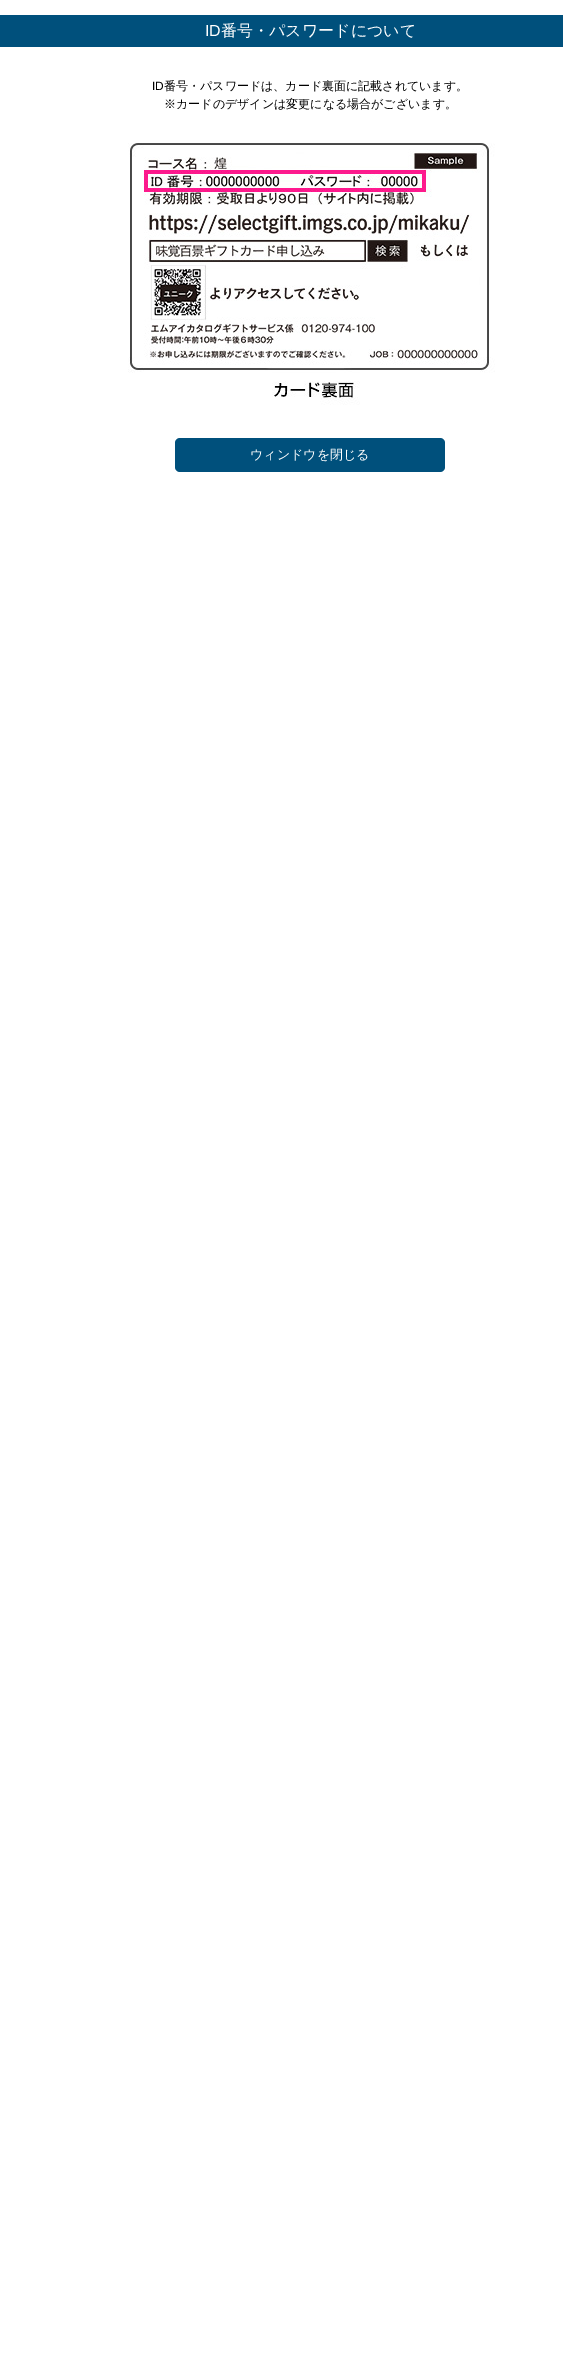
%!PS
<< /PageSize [563 2376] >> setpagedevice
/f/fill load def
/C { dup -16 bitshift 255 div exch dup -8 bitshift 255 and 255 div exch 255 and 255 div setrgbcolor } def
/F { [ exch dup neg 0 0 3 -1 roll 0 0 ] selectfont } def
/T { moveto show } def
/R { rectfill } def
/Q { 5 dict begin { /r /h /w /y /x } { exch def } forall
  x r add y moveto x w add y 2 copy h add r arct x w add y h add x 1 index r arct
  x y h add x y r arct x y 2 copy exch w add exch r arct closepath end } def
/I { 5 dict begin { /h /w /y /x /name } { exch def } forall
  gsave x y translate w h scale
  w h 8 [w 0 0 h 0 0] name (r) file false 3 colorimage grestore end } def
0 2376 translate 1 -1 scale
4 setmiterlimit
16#FFFFFF C
0 0 563 2376 R
16#00507C C
0 15 563 32 R
/LiberationSans-Regular 16 F
16#FFFFFF C
(ID) 205 36 T
/WenQuanYiZenHei-Medium 16 F
(番号・パスワードについて) 221 36 T
/LiberationSans-Regular 12 F
16#000000 C
(ID) 152 90 T
/WenQuanYiZenHei-Medium 12 F
(番号・パスワードは、カード裏面に記載されています。) 164 90 T
(※カードのデザインは変更になる場合がございます。) 164 108 T
(1.rgb) 128 143 367 262 I
16#00507C C
175 438 270 34 5 Q f
/WenQuanYiZenHei-Medium 13 F
16#FFFFFF C
(ウィンドウを閉じる) 250 459 T
showpage
